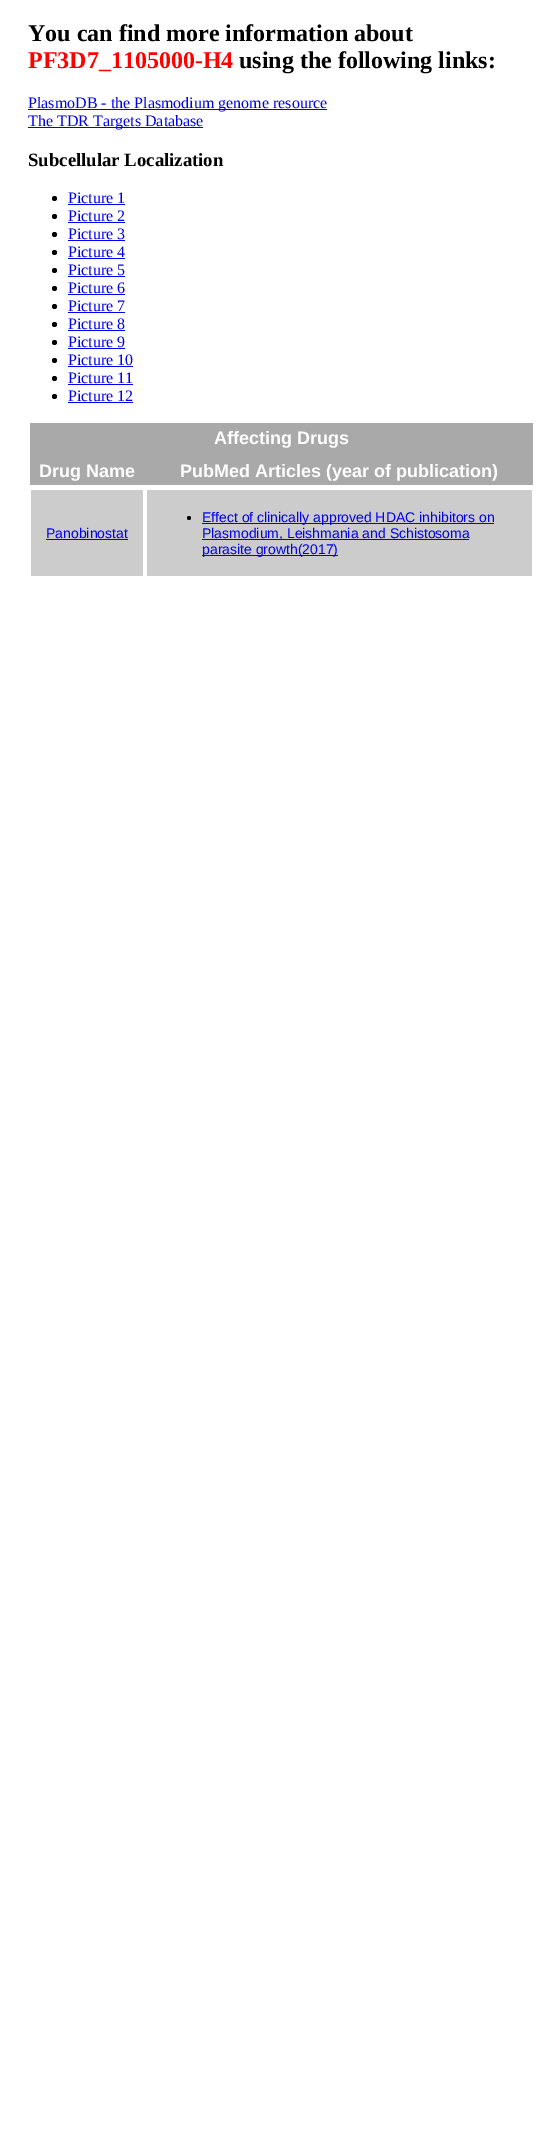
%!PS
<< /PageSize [543 2149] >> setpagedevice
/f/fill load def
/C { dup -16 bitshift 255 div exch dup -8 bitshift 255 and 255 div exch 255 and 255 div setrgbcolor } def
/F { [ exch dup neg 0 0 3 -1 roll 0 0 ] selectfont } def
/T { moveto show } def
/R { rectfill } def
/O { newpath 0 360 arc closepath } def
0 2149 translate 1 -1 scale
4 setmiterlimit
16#FFFFFF C
0 0 543 2149 R
/LiberationSerif-Bold 24 F
16#000000 C
(You can find more information about) 28 41 T
16#FF0000 C
(PF3D7_1105000-H4) 28 68 T
16#000000 C
(using the following links:) 239 68 T
16#0000EE C
28 109 299 1 R
/LiberationSerif-Regular 16 F
(PlasmoDB - the Plasmodium genome resource) 28 108 T
28 127 175 1 R
(The TDR Targets Database) 28 126 T
/LiberationSerif-Bold 18.75 F
16#000000 C
(Subcellular Localization) 28 166 T
54.5 198.5 2.5 O f
/LiberationSerif-Regular 16 F
16#0000EE C
(Picture 1) 68 203 T
68 204 57 1 R
16#000000 C
54.5 216.5 2.5 O f
16#0000EE C
(Picture 2) 68 221 T
68 222 57 1 R
16#000000 C
54.5 234.5 2.5 O f
16#0000EE C
(Picture 3) 68 239 T
68 240 57 1 R
16#000000 C
54.5 252.5 2.5 O f
16#0000EE C
(Picture 4) 68 257 T
68 258 57 1 R
16#000000 C
54.5 270.5 2.5 O f
16#0000EE C
(Picture 5) 68 275 T
68 276 57 1 R
16#000000 C
54.5 288.5 2.5 O f
16#0000EE C
(Picture 6) 68 293 T
68 294 57 1 R
16#000000 C
54.5 306.5 2.5 O f
16#0000EE C
(Picture 7) 68 311 T
68 312 57 1 R
16#000000 C
54.5 324.5 2.5 O f
16#0000EE C
(Picture 8) 68 329 T
68 330 57 1 R
16#000000 C
54.5 342.5 2.5 O f
16#0000EE C
(Picture 9) 68 347 T
68 348 57 1 R
16#000000 C
54.5 360.5 2.5 O f
16#0000EE C
(Picture 10) 68 365 T
68 366 65 1 R
16#000000 C
54.5 378.5 2.5 O f
16#0000EE C
(Picture 11) 68 383 T
68 384 65 1 R
16#000000 C
54.5 396.5 2.5 O f
16#0000EE C
(Picture 12) 68 401 T
68 402 65 1 R
16#A9A9A9 C
30 423 503 62 R
/LiberationSans-Bold 18 F
16#FFFFFF C
(Affecting Drugs) 214 444 T
(Drug Name) 39 477 T
(PubMed Articles \(year of publication\)) 180 477 T
16#CCCCCC C
31 490 112 86 R
/LiberationSans-Regular 14 F
16#0000EE C
(Panobinostat) 46 538 T
46 539 82 1 R
16#CCCCCC C
147 490 385 86 R
16#000000 C
189 518 2 O f
16#0000EE C
202 523 292 1 R
(Effect of clinically approved HDAC inhibitors on) 202 522 T
202 539 267 1 R
(Plasmodium, Leishmania and Schistosoma) 202 538 T
202 555 136 1 R
(parasite growth\(2017\)) 202 554 T
showpage
